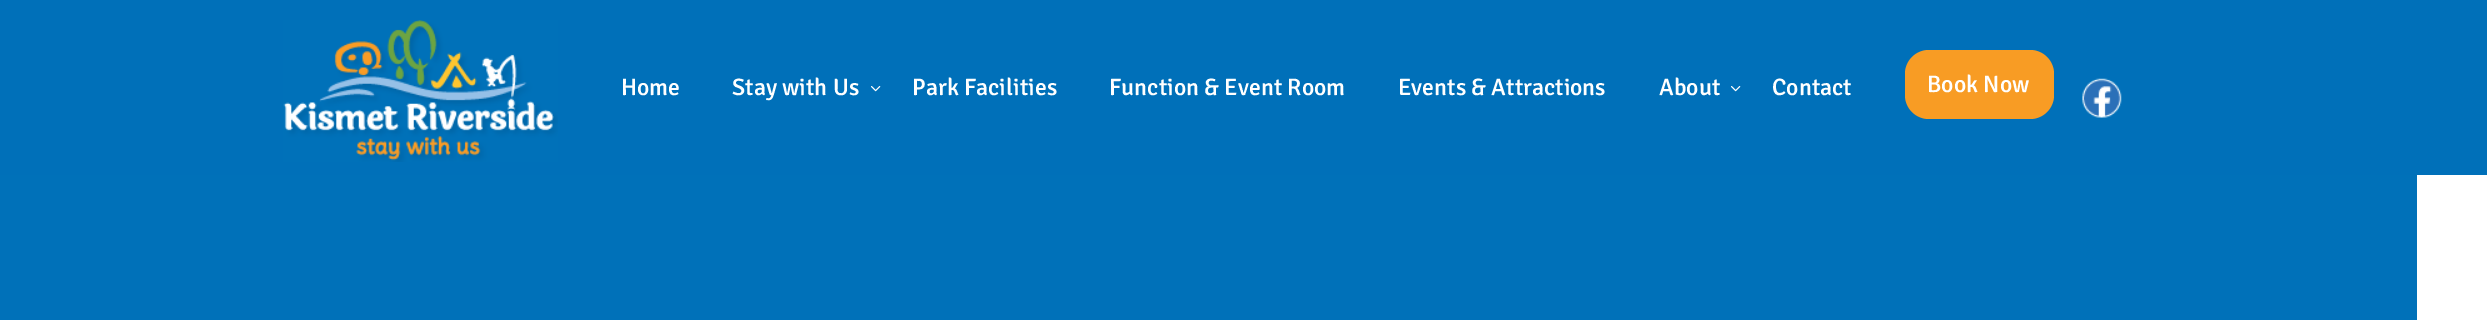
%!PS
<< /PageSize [2487 320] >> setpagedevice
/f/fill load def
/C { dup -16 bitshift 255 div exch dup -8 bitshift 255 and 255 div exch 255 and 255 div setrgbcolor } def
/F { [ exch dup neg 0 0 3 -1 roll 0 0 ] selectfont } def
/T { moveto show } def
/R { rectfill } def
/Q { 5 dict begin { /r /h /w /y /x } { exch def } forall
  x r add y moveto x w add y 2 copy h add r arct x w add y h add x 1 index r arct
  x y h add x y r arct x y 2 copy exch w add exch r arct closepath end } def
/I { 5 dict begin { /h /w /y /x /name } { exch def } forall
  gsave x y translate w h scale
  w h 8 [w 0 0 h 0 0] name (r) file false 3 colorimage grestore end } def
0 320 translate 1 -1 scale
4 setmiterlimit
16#FFFFFF C
0 0 2487 320 R
16#0070B9 C
0 0 2487 175 R
(1.rgb) 283 20 275 142 I
/Signika-Medium 23.75 F
16#FFFFFF C
(Home) 621 95 T
(Stay with Us) 732 95 T
(2.rgb) 871 86 10 6 I
(Park Facilities) 912 95 T
(Function & Event Room) 1109 95 T
(Events & Attractions) 1398 95 T
(About) 1659 95 T
(2.rgb) 1731 86 10 6 I
(Contact) 1772 95 T
16#F89C24 C
1905 50 149 69 24 Q f
16#FFFFFF C
(Book Now) 1927 92 T
(3.rgb) 2082 78 40 40 I
16#0071B9 C
0 175 2417 145 R
showpage
